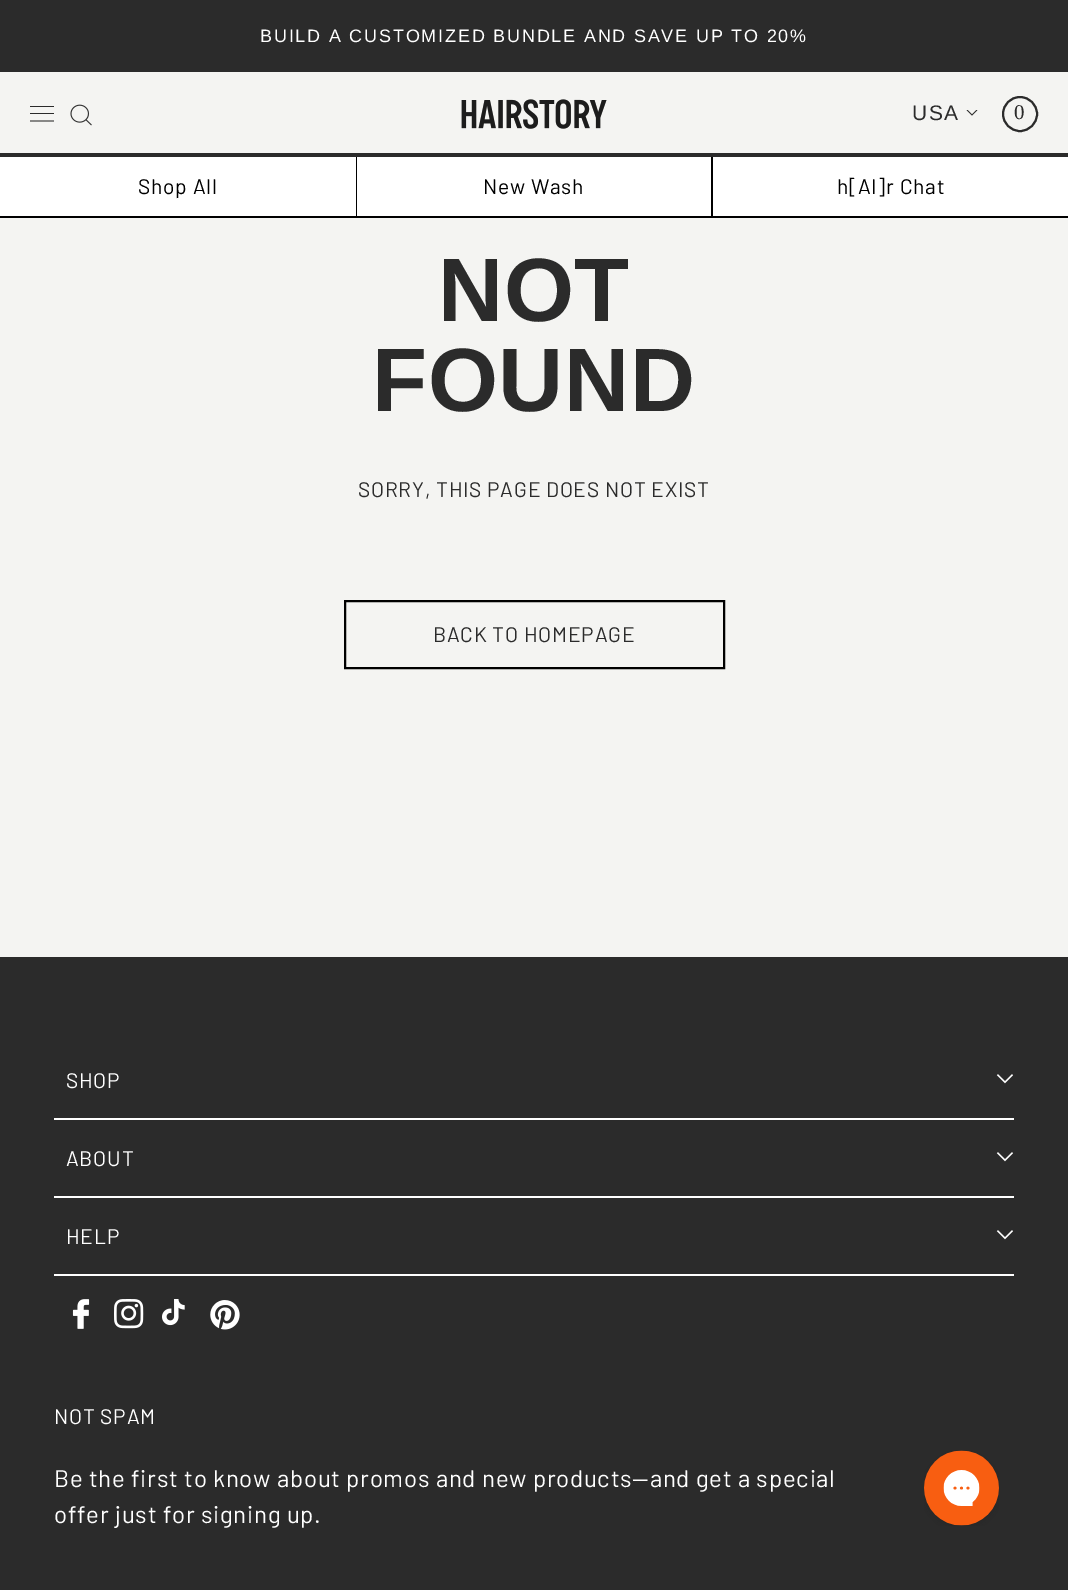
%!PS
<< /PageSize [1068 1590] >> setpagedevice
/m/moveto load def
/l/rlineto load def
/s/stroke load def
/w/setlinewidth load def
/C { dup -16 bitshift 255 div exch dup -8 bitshift 255 and 255 div exch 255 and 255 div setrgbcolor } def
/F { [ exch dup neg 0 0 3 -1 roll 0 0 ] selectfont } def
/R { rectfill } def
/O { newpath 0 360 arc closepath } def
/I { 5 dict begin { /h /w /y /x /name } { exch def } forall
  gsave x y translate w h scale
  w h 8 [w 0 0 h 0 0] name (r) file false 3 colorimage grestore end } def
0 1590 translate 1 -1 scale
4 setmiterlimit
16#2B2B2B C
0 0 1068 1590 R
/LiberationSans-Regular 18 F
16#FFFFFF C
260 42 m 1.8 0 (BUILD A CUSTOMIZED BUNDLE AND SAVE UP TO 20%) ashow
16#000000 C
356 156 1 60 R
711 156 2 60 R
16#2B2B2B C
356 156 357 1 R
16#F4F4F2 C
0 72 1068 81 R
16#2B2B2B C
.7 w
30 106.5 m 24 0 l 30 113.5 m 24 0 l 30 121 m 24 0 l s
(1.rgb) 70 104 22 22 I
(2.rgb) 461 99 146 30 I
/LiberationSans-Regular 21 F
912 120 m 1.5 0 (USA) ashow
(3.rgb) 966 110 12 6 I
2 w
1020 114 17 O s
/LiberationSerif-Regular 21 F
1014 119 m 1 0 (0) ashow
16#000000 C
0 216 1068 2 R
16#FFFFFF C
0 157 356 59 R
/Barlow-Regular 21 F
16#000000 C
138 194 m .75 0 (Shop All) ashow
16#FFFFFF C
357 157 354 59 R
16#000000 C
483 194 m .75 0 (New Wash) ashow
16#FFFFFF C
713 157 355 59 R
16#000000 C
837 194 m .75 0 (h[AI]r Chat) ashow
16#F4F4F2 C
0 218 1068 739 R
/LiberationSans-Bold 90 F
16#2B2B2B C
438 321 m .75 0 (NOT) ashow
372 411 m .75 0 (FOUND) ashow
/Barlow-Regular 21 F
358 497 m .75 0 (SORRY, THIS PAGE DOES NOT EXIST) ashow
16#000000 C
345 601 379 67 rectstroke
16#2B2B2B C
433 642 m .75 0 (BACK TO HOMEPAGE) ashow
16#FFFFFF C
54 1118 960 2 R
66 1088 m .75 0 (SHOP) ashow
(4.rgb) 996 1074 17 10 I
54 1196 960 2 R
66 1166 m .75 0 (ABOUT) ashow
(4.rgb) 996 1152 17 10 I
54 1274 960 2 R
66 1244 m .75 0 (HELP) ashow
(4.rgb) 996 1230 17 10 I
(5.rgb) 72 1299 18 30 I
(6.rgb) 114 1299 30 30 I
(7.rgb) 162 1299 23 27 I
(8.rgb) 210 1300 30 30 I
54 1424 m .75 0 (NOT SPAM) ashow
/Barlow-Regular 24 F
54 1487 m .75 0 (Be the first to know about promos and new products—and get a special) ashow
54 1523 m .75 0 (offer just for signing up.) ashow
(9.rgb) 924 1450 75 76 I
showpage
